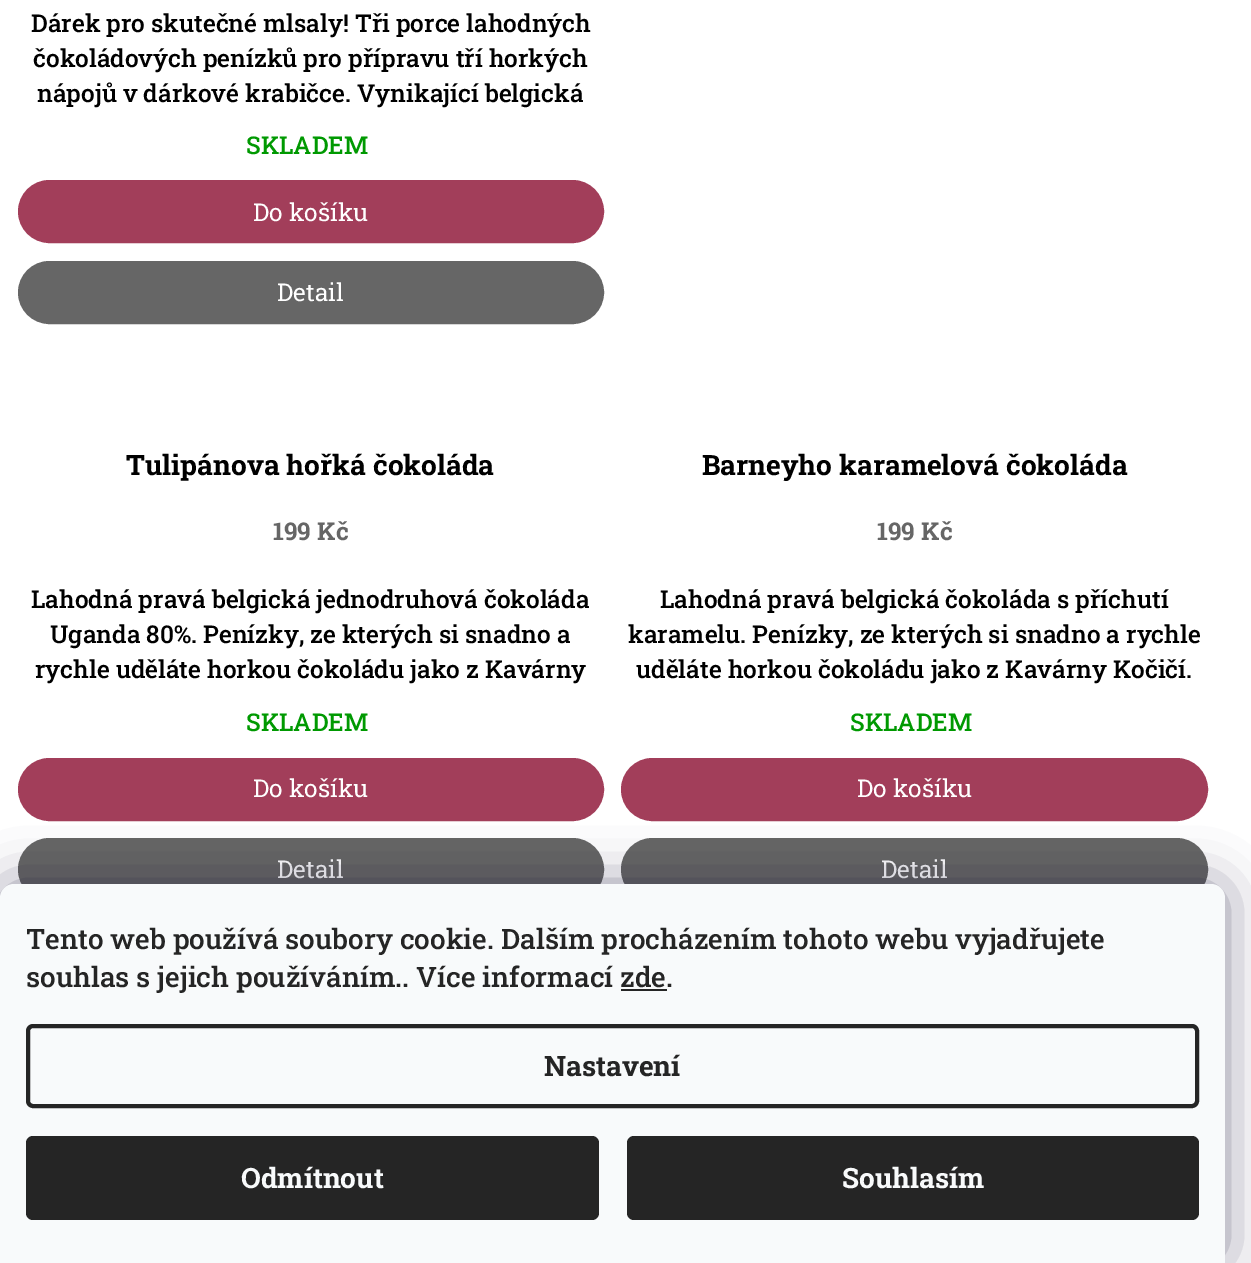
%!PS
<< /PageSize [1251 1263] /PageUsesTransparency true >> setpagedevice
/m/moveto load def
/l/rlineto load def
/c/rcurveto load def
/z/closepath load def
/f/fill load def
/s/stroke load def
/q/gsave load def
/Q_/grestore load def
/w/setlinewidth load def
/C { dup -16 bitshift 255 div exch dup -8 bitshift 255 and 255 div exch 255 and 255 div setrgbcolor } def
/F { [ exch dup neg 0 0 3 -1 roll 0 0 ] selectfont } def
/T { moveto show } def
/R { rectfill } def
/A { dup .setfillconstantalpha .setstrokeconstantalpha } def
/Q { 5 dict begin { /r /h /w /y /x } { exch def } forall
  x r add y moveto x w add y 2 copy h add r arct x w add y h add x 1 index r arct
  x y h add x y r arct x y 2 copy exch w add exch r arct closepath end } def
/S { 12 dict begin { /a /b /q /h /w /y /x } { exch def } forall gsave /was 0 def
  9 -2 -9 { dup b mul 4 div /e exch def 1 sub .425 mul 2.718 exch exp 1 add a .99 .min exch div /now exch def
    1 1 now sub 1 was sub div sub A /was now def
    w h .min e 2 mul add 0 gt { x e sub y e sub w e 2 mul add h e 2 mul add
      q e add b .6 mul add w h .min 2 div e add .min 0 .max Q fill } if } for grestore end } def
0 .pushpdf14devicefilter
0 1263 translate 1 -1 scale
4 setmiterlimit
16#FFFFFF C
0 0 1251 1263 R
/RobotoSlab-Medium 24.5 F
16#000000 C
(Dárek pro skutečné mlsaly! Tři porce lahodných) 31 32 T
(čokoládových penízků pro přípravu tří horkých) 33 67 T
(nápojů v dárkové krabičce. Vynikající belgická) 37 102 T
16#009901 C
(SKLADEM) 246 154 T
16#A23E5A C
19 181 584 61 30.5 Q q f Q_
2 w
s
/RobotoSlab-Regular 24.5 F
16#FFFFFF C
(Do košíku) 253 221 T
16#666666 C
19 262 584 61 30.5 Q q f Q_
s
16#FFFFFF C
(Detail) 277 301 T
/RobotoSlab-Bold 28 F
16#000000 C
(Tulipánova hořká čokoláda) 126 475 T
/RobotoSlab-Bold 24.5 F
16#666666 C
(199 Kč) 273 540 T
/RobotoSlab-Medium 24.5 F
16#000000 C
(Lahodná pravá belgická jednodruhová čokoláda) 31 608 T
(Uganda 80%. Penízky, ze kterých si snadno a) 50 643 T
(rychle uděláte horkou čokoládu jako z Kavárny) 35 678 T
16#009901 C
(SKLADEM) 246 731 T
16#A23E5A C
19 759 584 61 30.5 Q q f Q_
s
/RobotoSlab-Regular 24.5 F
16#FFFFFF C
(Do košíku) 253 797 T
16#666666 C
19 839 584 61 30.5 Q q f Q_
s
16#FFFFFF C
(Detail) 277 878 T
/RobotoSlab-Bold 28 F
16#000000 C
(Barneyho karamelová čokoláda) 702 475 T
/RobotoSlab-Bold 24.5 F
16#666666 C
(199 Kč) 877 540 T
/RobotoSlab-Medium 24.5 F
16#000000 C
(Lahodná pravá belgická čokoláda s příchutí) 660 608 T
(karamelu. Penízky, ze kterých si snadno a rychle) 628 643 T
(uděláte horkou čokoládu jako z Kavárny Kočičí.) 636 678 T
16#009901 C
(SKLADEM) 850 731 T
16#A23E5A C
622 759 585 61 30.5 Q q f Q_
s
/RobotoSlab-Regular 24.5 F
16#FFFFFF C
(Do košíku) 857 797 T
16#666666 C
622 839 585 61 30.5 Q q f Q_
s
16#FFFFFF C
(Detail) 881 878 T
16#1B1939 C
0 884 1225 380 14 26 .5 S
16#F8FAFB C
14 884 m 1197 0 l 7.5 0 14 6.5 14 14 c 0 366 l -1225 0 l 0 -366 l 0 -7.5 6.5 -14 14 -14 c z f
/RobotoSlab-Medium 28 F
16#252525 C
(Tento web používá soubory cookie. Dalším procházením tohoto webu vyjadřujete) 26 949 T
(souhlas s jejich používáním.. Více informací zde.) 26 987 T
621 989 46 2 R
4 w
28 1026 1169 80 5 Q s
/RobotoSlab-Bold 28 F
(Nastavení) 544 1076 T
26 1136 573 84 7 Q f
16#F8FAFB C
(Odmítnout) 241 1188 T
16#252525 C
627 1136 572 84 7 Q f
16#F8FAFB C
(Souhlasím) 842 1188 T
.poppdf14devicefilter showpage
